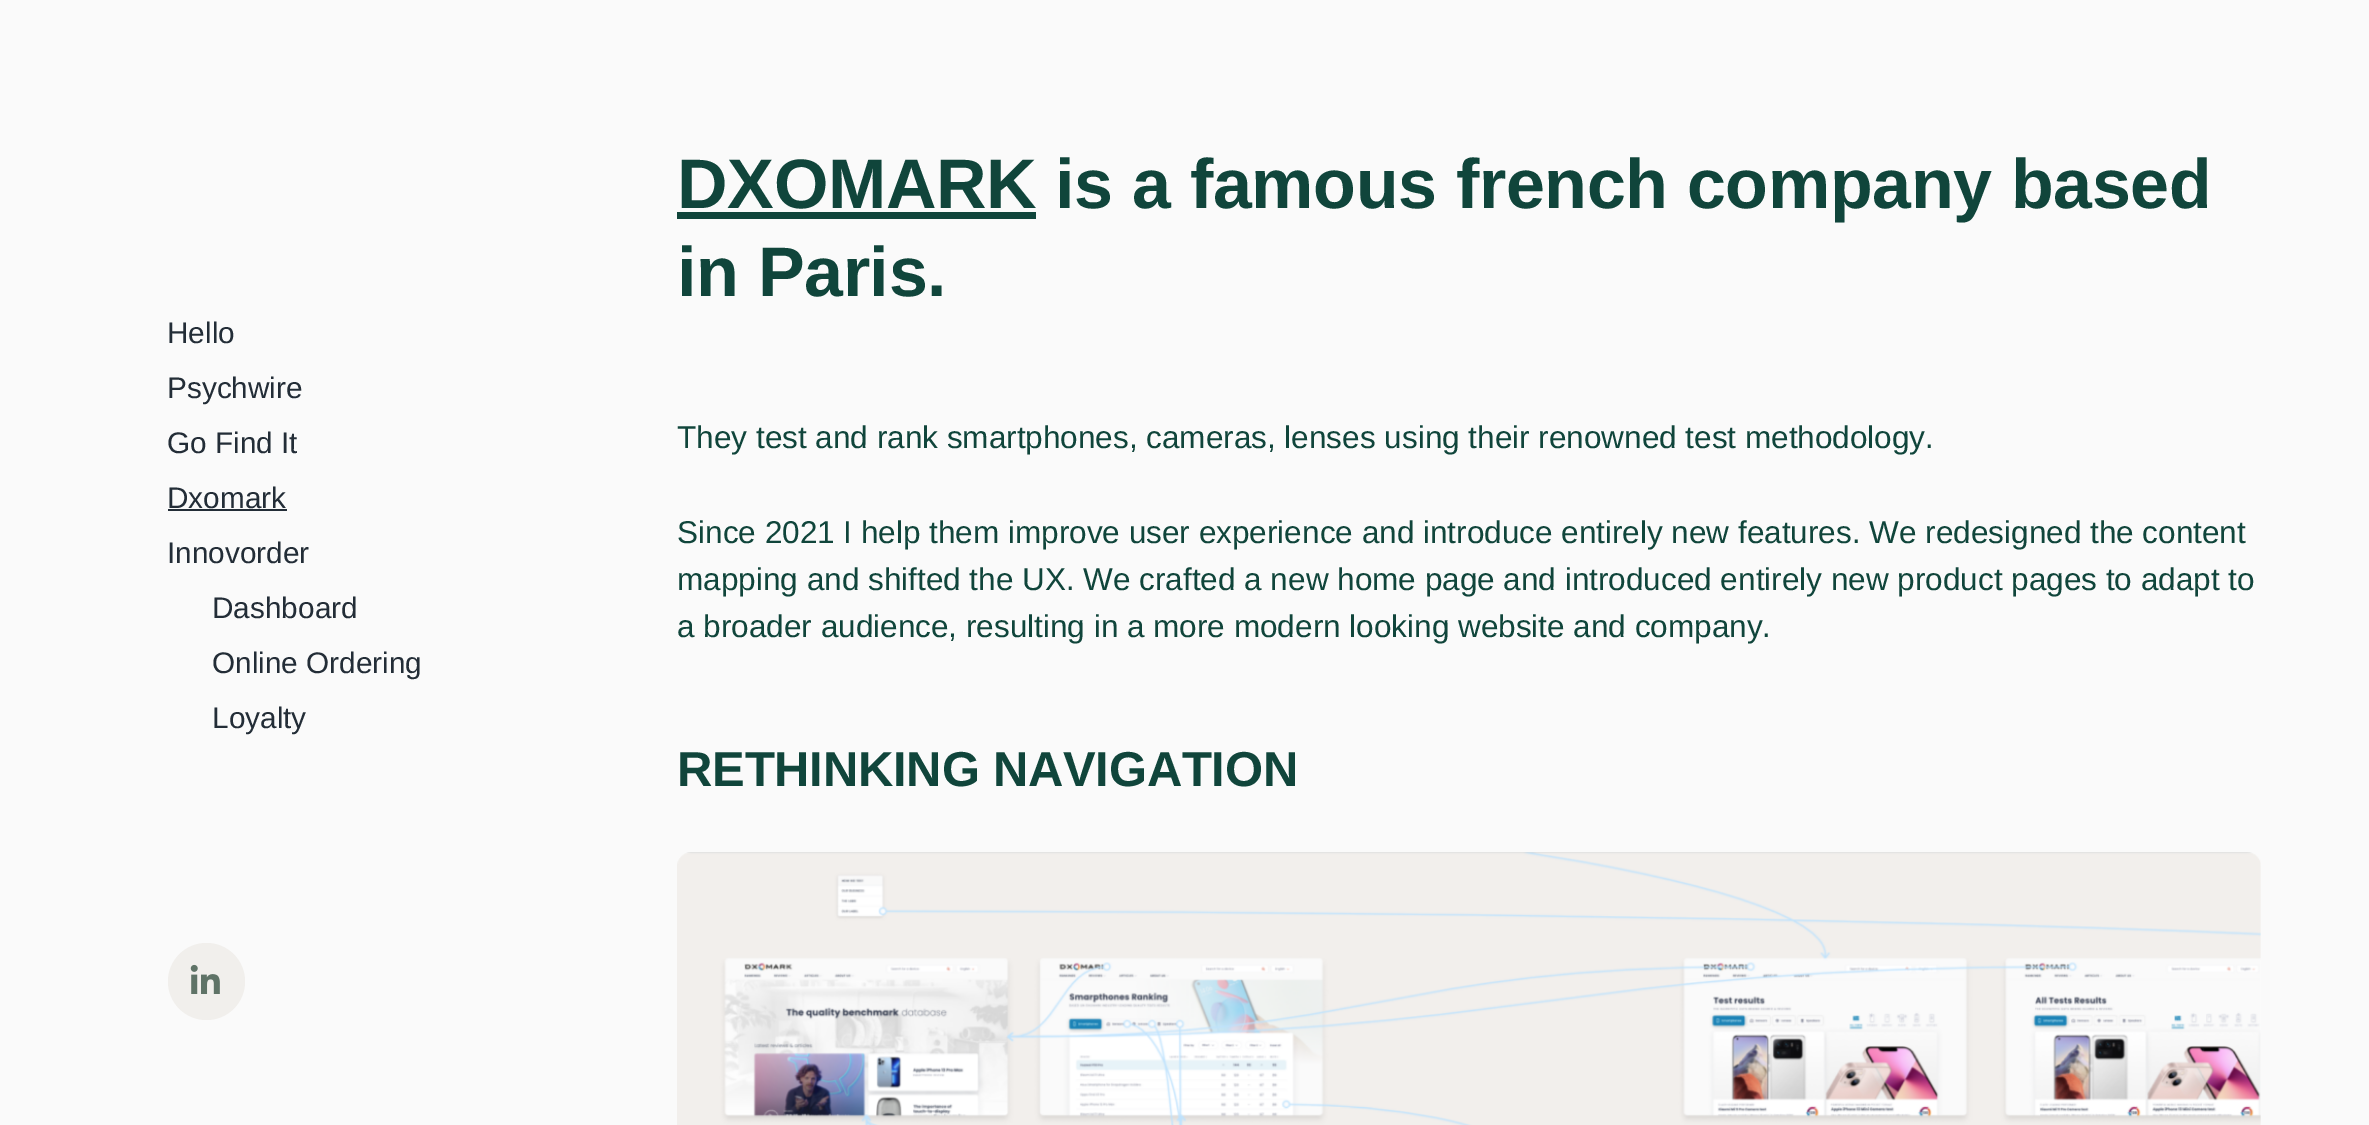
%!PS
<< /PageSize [2369 1125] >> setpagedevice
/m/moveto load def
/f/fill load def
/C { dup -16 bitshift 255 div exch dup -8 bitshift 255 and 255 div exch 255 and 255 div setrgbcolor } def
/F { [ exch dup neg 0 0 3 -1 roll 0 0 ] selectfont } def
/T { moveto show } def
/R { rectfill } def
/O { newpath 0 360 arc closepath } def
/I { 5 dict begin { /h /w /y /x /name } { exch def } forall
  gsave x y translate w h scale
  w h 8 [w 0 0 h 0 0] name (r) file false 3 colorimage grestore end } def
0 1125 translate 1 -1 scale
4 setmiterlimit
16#FAFAFA C
0 0 2369 1125 R
/LiberationSans-Regular 29.75 F
16#232D37 C
(Hello) 167 343 T
(Psychwire) 167 398 T
(Go Find It) 167 453 T
(Dxomark) 167 508 T
168 509 119 2 R
(Innovorder) 167 563 T
(Dashboard) 212 618 T
(Online Ordering) 212 673 T
(Loyalty) 212 728 T
16#F1EFEC C
206.5 981.5 38.5 O f
(1.rgb) 190 964 30 30 I
16#10453B C
677 212 359 7 R
/LiberationSans-Bold 70 F
677 208 m -.35 0 (DXOMARK is a famous french company based) ashow
677 296 m -.35 0 (in Paris.) ashow
/LiberationSans-Regular 31.5 F
(They test and rank smartphones, cameras, lenses using their renowned test methodology.) 677 448 T
(Since 2021 I help them improve user experience and introduce entirely new features. We redesigned the content) 677 543 T
(mapping and shifted the UX. We crafted a new home page and introduced entirely new product pages to adapt to) 677 590 T
(a broader audience, resulting in a more modern looking website and company.) 677 637 T
/LiberationSans-Bold 49 F
677 786 m -.25 0 (RETHINKING NAVIGATION) ashow
(2.rgb) 677 852 1584 273 I
showpage
